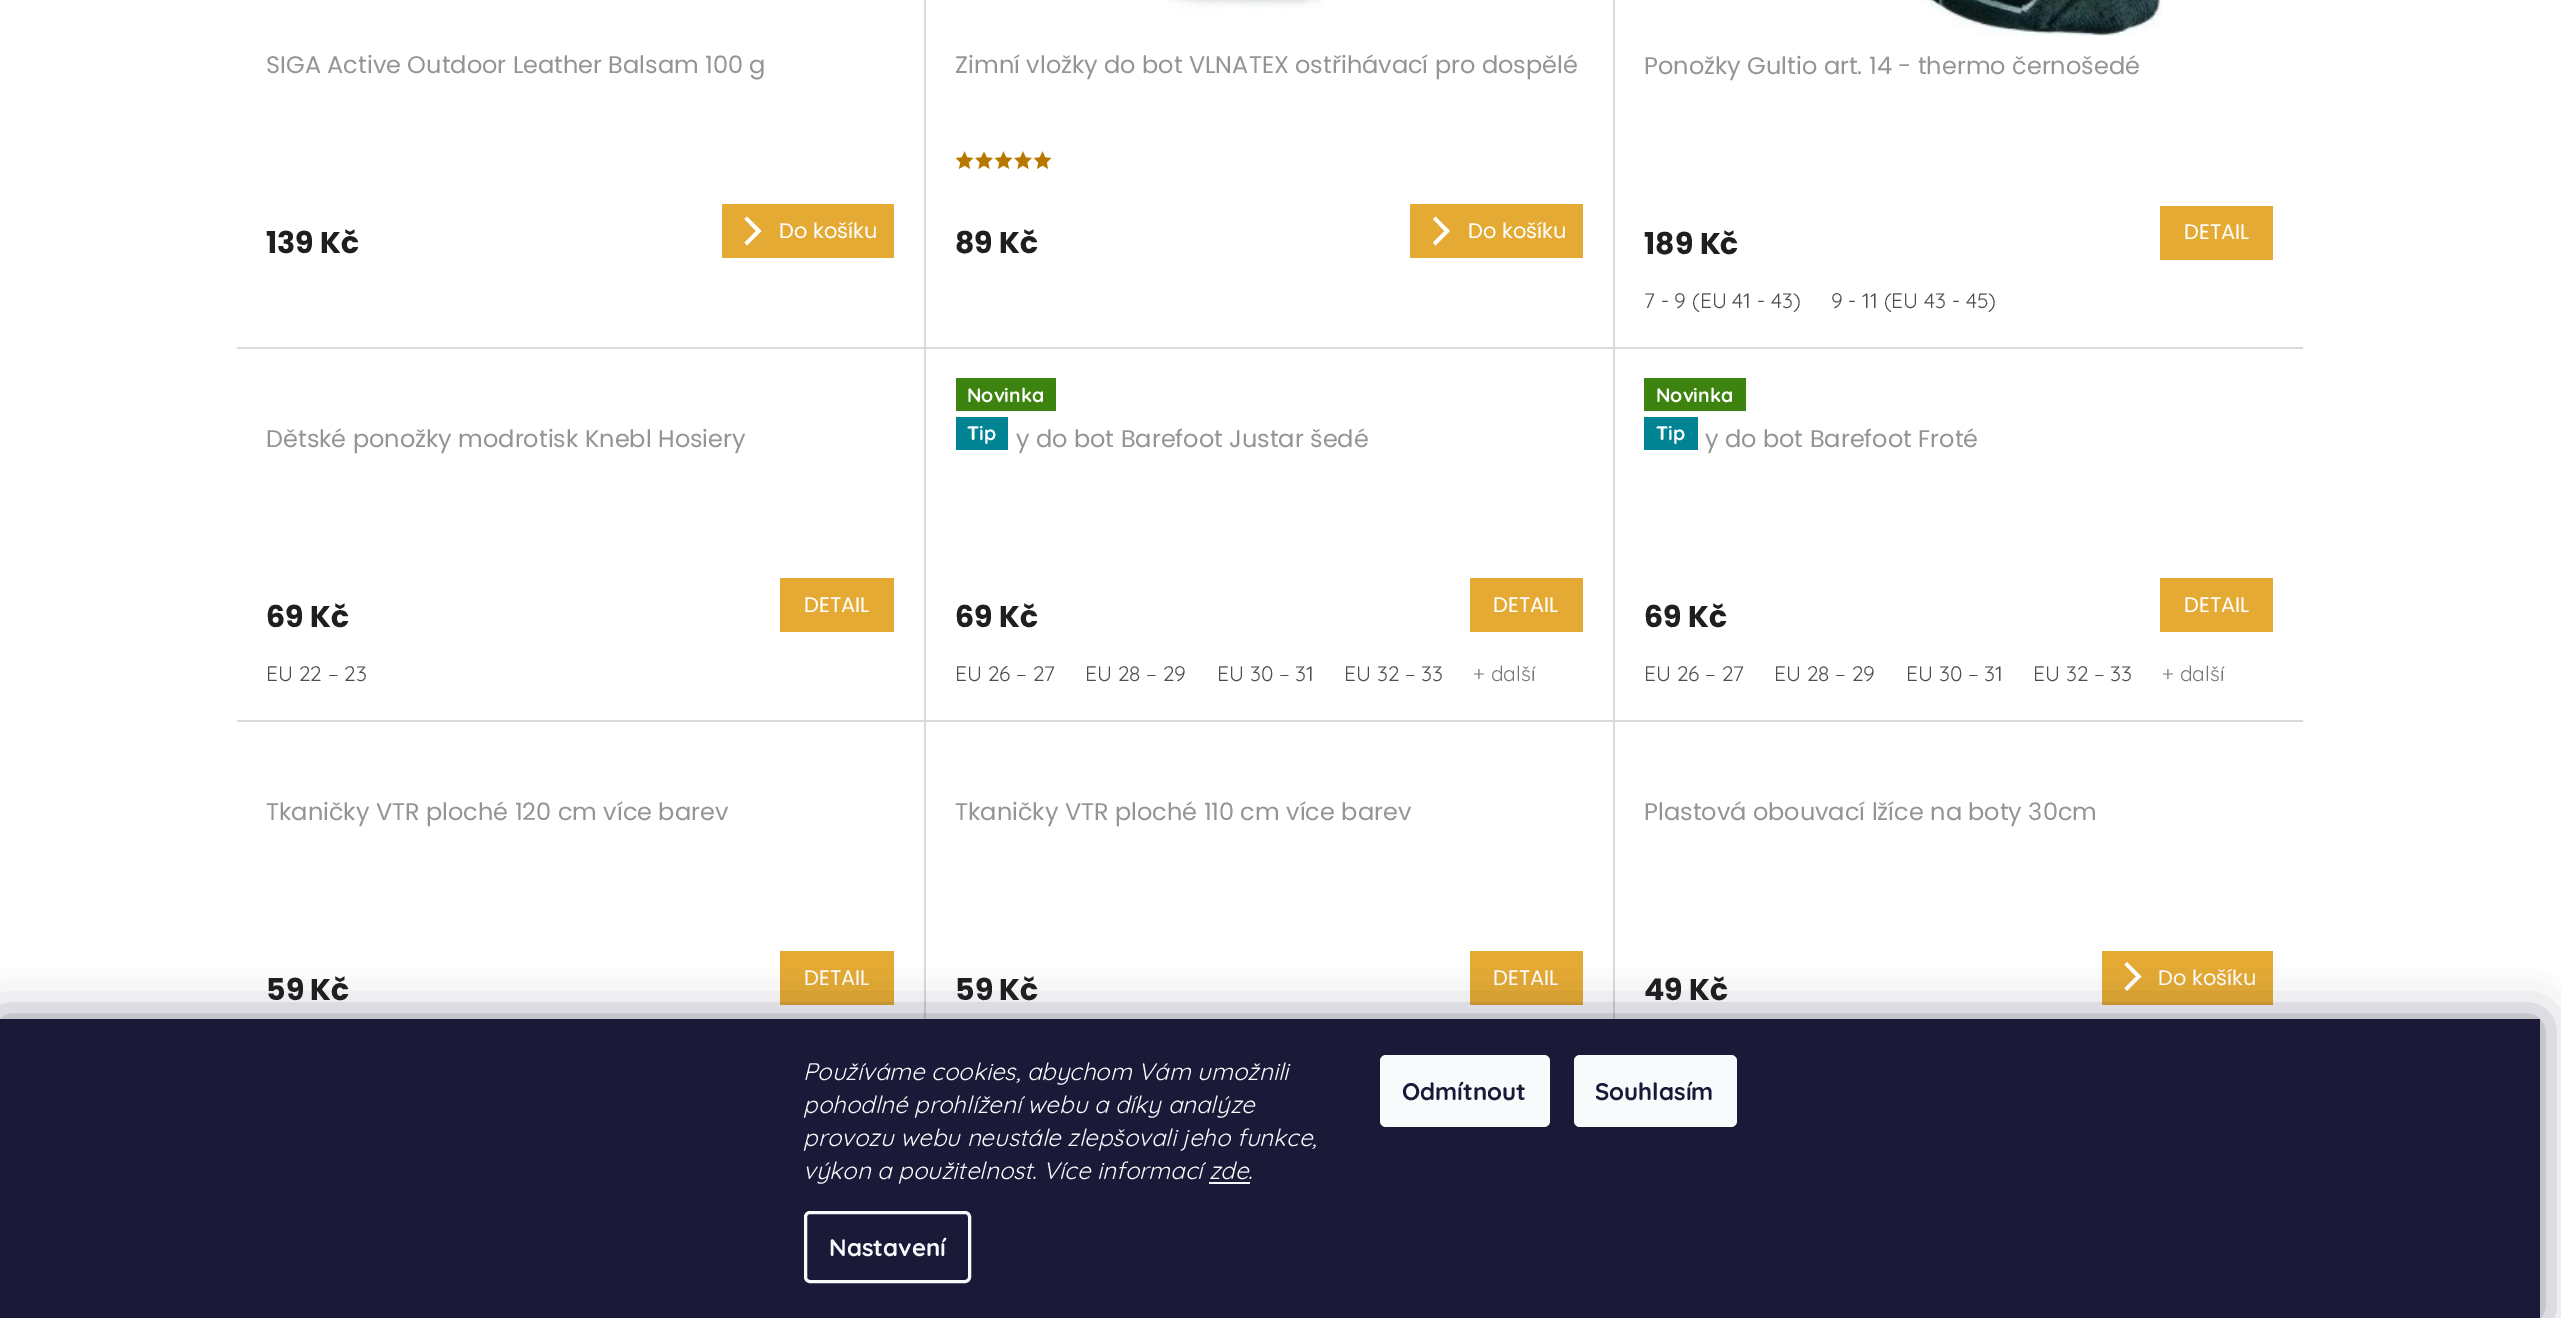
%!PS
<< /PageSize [2561 1318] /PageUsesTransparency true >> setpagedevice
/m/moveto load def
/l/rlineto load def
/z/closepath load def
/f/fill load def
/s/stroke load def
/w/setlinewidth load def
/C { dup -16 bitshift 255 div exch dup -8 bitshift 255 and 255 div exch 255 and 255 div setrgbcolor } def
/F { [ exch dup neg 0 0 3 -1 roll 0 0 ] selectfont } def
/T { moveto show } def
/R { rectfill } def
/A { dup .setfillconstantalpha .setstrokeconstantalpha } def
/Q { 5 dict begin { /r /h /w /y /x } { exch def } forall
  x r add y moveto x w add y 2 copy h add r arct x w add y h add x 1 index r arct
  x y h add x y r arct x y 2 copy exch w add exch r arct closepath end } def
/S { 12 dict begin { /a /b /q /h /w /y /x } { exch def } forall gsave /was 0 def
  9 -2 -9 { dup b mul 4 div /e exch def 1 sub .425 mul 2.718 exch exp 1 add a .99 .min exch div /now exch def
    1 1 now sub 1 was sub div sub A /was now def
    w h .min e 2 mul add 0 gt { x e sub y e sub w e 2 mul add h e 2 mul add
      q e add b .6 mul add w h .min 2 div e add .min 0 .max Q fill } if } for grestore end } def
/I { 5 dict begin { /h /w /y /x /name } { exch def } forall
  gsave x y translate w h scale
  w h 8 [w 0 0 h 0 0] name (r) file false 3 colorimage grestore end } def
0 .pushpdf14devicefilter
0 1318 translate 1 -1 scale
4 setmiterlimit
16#FFFFFF C
0 0 2561 1318 R
16#DADADA C
924 0 2 347 R
/Poppins-Regular 24 F
16#949494 C
(SIGA Active Outdoor Leather Balsam 100 g) 266 73 T
/Poppins-Bold 30 F
16#1F1F1F C
(139 Kč) 266 253 T
16#E4AA33 C
722 204 172 54 R
16#FFFFFF C
747 245.5 m -2.5 -3 l 11.5 -11.5 l -11.5 -12 l 2.5 -2.5 l 14.5 14.5 l z f
/Poppins-Regular 21 F
(Do košíku) 779 238 T
16#DADADA C
1613 0 2 347 R
(1.rgb) 1168 0 156 12 I
/Poppins-Regular 24 F
16#949494 C
(Zimní vložky do bot VLNATEX ostřihávací pro dospělé) 955 73 T
(2.rgb) 955 151 19 18 I
(3.rgb) 975 151 18 18 I
(2.rgb) 994 151 19 18 I
(3.rgb) 1014 151 18 18 I
(2.rgb) 1033 151 19 18 I
/Poppins-Bold 30 F
16#1F1F1F C
(89 Kč) 955 253 T
16#E4AA33 C
1410 204 173 54 R
16#FFFFFF C
1435.5 245.5 m -2.5 -3 l 11.5 -11.5 l -11.5 -12 l 2.5 -2.5 l 14.5 14.5 l z f
/Poppins-Regular 21 F
(Do košíku) 1468 238 T
(4.rgb) 1919 0 243 36 I
/Poppins-Regular 24 F
16#949494 C
(Ponožky Gultio art. 14 - thermo černošedé) 1644 74 T
/Poppins-Bold 30 F
16#1F1F1F C
(189 Kč) 1644 254 T
16#E4AA33 C
2160 206 113 54 R
/Poppins-Regular 21 F
16#FFFFFF C
(DETAIL) 2184 239 T
/Quicksand-Regular 21 F
16#4D4D4D C
(7 - 9 \(EU 41 - 43\)) 1644 308 T
(9 - 11 \(EU 43 - 45\)) 1831 308 T
16#DADADA C
237 347 1377 2 R
924 347 2 373 R
/Poppins-Regular 24 F
16#949494 C
(Dětské ponožky modrotisk Knebl Hosiery) 266 447 T
/Poppins-Bold 30 F
16#1F1F1F C
(69 Kč) 266 627 T
16#E4AA33 C
780 578 114 54 R
/Poppins-Regular 21 F
16#FFFFFF C
(DETAIL) 804 612 T
/Quicksand-Regular 21 F
16#4D4D4D C
(EU 22 – 23) 266 681 T
16#DADADA C
1613 347 2 373 R
16#3C840F C
956 378 100 33 R
/Quicksand-Bold 19.5 F
16#FFFFFF C
(Novinka) 967 402 T
16#008392 C
956 417 52 33 R
16#FFFFFF C
(Tip) 967 440 T
/Poppins-Regular 24 F
16#949494 C
(y do bot Barefoot Justar šedé) 1016 447 T
/Poppins-Bold 30 F
16#1F1F1F C
(69 Kč) 955 627 T
16#E4AA33 C
1470 578 113 54 R
/Poppins-Regular 21 F
16#FFFFFF C
(DETAIL) 1493 612 T
/Quicksand-Regular 21 F
16#4D4D4D C
(EU 26 – 27) 955 681 T
(EU 28 – 29) 1085 681 T
(EU 30 – 31) 1217 681 T
(EU 32 – 33) 1344 681 T
16#767676 C
(+ další) 1473 681 T
16#DADADA C
1614 347 689 2 R
16#3C840F C
1644 378 102 33 R
/Quicksand-Bold 19.5 F
16#FFFFFF C
(Novinka) 1656 402 T
16#008392 C
1644 417 54 33 R
16#FFFFFF C
(Tip) 1656 440 T
/Poppins-Regular 24 F
16#949494 C
(y do bot Barefoot Froté) 1705 447 T
/Poppins-Bold 30 F
16#1F1F1F C
(69 Kč) 1644 627 T
16#E4AA33 C
2160 578 113 54 R
/Poppins-Regular 21 F
16#FFFFFF C
(DETAIL) 2184 612 T
/Quicksand-Regular 21 F
16#4D4D4D C
(EU 26 – 27) 1644 681 T
(EU 28 – 29) 1774 681 T
(EU 30 – 31) 1906 681 T
(EU 32 – 33) 2033 681 T
16#767676 C
(+ další) 2162 681 T
16#DADADA C
237 720 1377 2 R
924 720 2 299 R
/Poppins-Regular 24 F
16#949494 C
(Tkaničky VTR ploché 120 cm více barev) 266 820 T
/Poppins-Bold 30 F
16#1F1F1F C
(59 Kč) 266 1000 T
16#E4AA33 C
780 951 114 54 R
/Poppins-Regular 21 F
16#FFFFFF C
(DETAIL) 804 985 T
16#DADADA C
1613 720 2 299 R
/Poppins-Regular 24 F
16#949494 C
(Tkaničky VTR ploché 110 cm více barev) 955 820 T
/Poppins-Bold 30 F
16#1F1F1F C
(59 Kč) 955 1000 T
16#E4AA33 C
1470 951 113 54 R
/Poppins-Regular 21 F
16#FFFFFF C
(DETAIL) 1493 985 T
16#DADADA C
1614 720 689 2 R
/Poppins-Regular 24 F
16#949494 C
(Plastová obouvací lžíce na boty 30cm) 1644 820 T
/Poppins-Bold 30 F
16#1F1F1F C
(49 Kč) 1644 1000 T
16#E4AA33 C
2102 951 171 54 R
16#FFFFFF C
2127 991 m -2.5 -3 l 11.5 -11.5 l -11.5 -12 l 2.5 -2.5 l 14.5 14.5 l z f
/Poppins-Regular 21 F
(Do košíku) 2158 985 T
16#1B1939 C
0 1019 2540 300 0 22.5 .5 S
16#1A1937 C
0 1019 2540 299 R
/Quicksand-Italic 24 F
16#F8FAFB C
(Používáme cookies, abychom Vám umožnili) 803 1080 T
(pohodlné prohlížení webu a díky analýze) 803 1113 T
(provozu webu neustále zlepšovali jeho funkce,) 803 1146 T
(výkon a použitelnost. Více informací zde.) 803 1179 T
1209 1182 41 2 R
3 w
805.5 1212.5 164 69 4.5 Q s
/Quicksand-Bold 24 F
(Nastavení) 829 1256 T
1380 1055 170 72 6 Q f
16#1A1937 C
(Odmítnout) 1402 1100 T
16#F8FAFB C
1574 1055 163 72 6 Q f
16#1A1937 C
(Souhlasím) 1595 1100 T
.poppdf14devicefilter showpage
